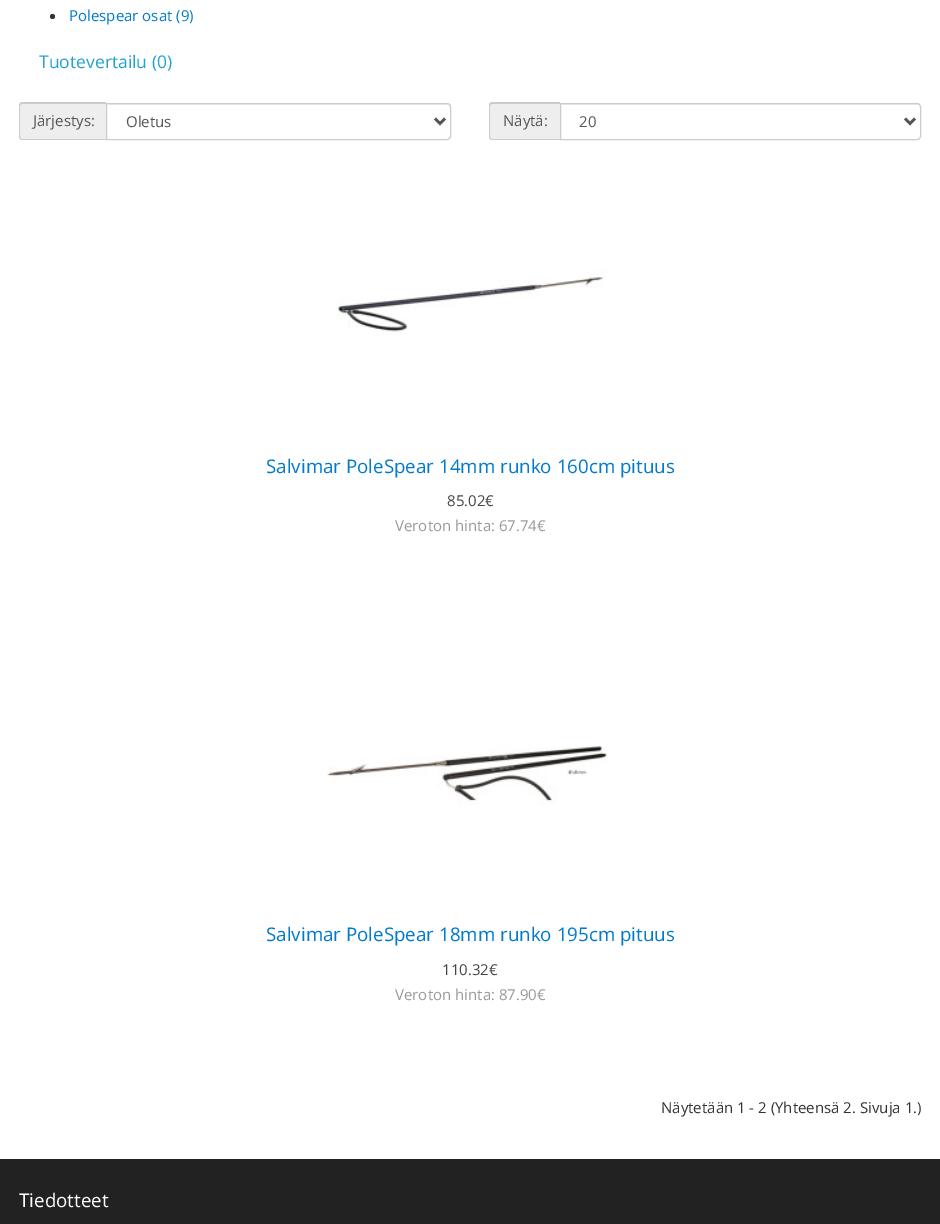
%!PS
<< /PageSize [940 1224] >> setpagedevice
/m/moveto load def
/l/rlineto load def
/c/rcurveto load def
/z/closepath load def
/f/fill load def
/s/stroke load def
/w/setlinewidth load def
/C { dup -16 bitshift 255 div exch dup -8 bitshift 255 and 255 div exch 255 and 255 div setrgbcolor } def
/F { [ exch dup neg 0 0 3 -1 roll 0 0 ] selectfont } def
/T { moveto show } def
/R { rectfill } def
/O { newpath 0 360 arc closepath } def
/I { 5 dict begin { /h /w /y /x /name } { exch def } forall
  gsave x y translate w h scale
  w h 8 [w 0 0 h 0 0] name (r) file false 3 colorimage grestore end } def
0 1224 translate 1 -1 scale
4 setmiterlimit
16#FFFFFF C
0 0 940 1224 R
16#333333 C
52.5 16.5 2.5 O f
/OpenSans-Regular 15 F
16#007ACC C
(Polespear osat \(9\)) 69 21 T
/OpenSans-Regular 17.5 F
16#23A1D1 C
(Tuotevertailu \(0\)) 39 68 T
16#EEEEEE C
23 103 m 83 0 l 0 37 l -83 0 l -2 0 -4 -2 -4 -4 c 0 -29 l 0 -2 2 -4 4 -4 c z f
16#CCCCCC C
22 102 m 84 0 l 0 38 l -84 0 l -2 0 -3 -2 -3 -4 c 0 -30 l 0 -2 1 -4 3 -4 c z 22 104 m 84 0 l 0 35 l -84 0 l -1 0 -2 -1 -2 -3 c 0 -30 l 0 -1 1 -2 2 -2 c z eofill
/OpenSans-Regular 15 F
16#555555 C
(Järjestys:) 33 126 T
16#ECECEC C
108 105 m 340 0 l 1 0 2 1 2 3 c 0 -2 l 0 -1 -1 -2 -2 -2 c -340 0 l z f
16#CCCCCC C
106.5 103.5 m 340.5 0 l 2 0 3.5 1.5 3.5 3.5 c 0 29 l 0 2 -1.5 3.5 -3.5 3.5 c -340.5 0 l z s
16#555555 C
2.5 w
435 118.5 m 5 5 l 5 -5 l s
(Oletus) 126 127 T
16#EEEEEE C
493 103 m 67 0 l 0 37 l -67 0 l -2 0 -4 -2 -4 -4 c 0 -29 l 0 -2 2 -4 4 -4 c z f
16#CCCCCC C
492 102 m 68 0 l 0 38 l -68 0 l -2 0 -3 -2 -3 -4 c 0 -30 l 0 -2 1 -4 3 -4 c z 492 104 m 68 0 l 0 35 l -68 0 l -1 0 -2 -1 -2 -3 c 0 -30 l 0 -1 1 -2 2 -2 c z eofill
16#555555 C
(Näytä:) 503 126 T
16#ECECEC C
561 105 m 357 0 l 1 0 2 1 2 3 c 0 -2 0 -4 -2 -4 c -357 0 l z f
16#CCCCCC C
1 w
560.5 103.5 m 356.5 0 l 2 0 3.5 1.5 3.5 3.5 c 0 29 l 0 2 -1.5 3.5 -3.5 3.5 c -356.5 0 l z s
16#555555 C
2.5 w
905 118.5 m 5 5 l 5 -5 l s
(20) 579 127 T
(1.rgb) 337 269 269 66 I
/OpenSans-Regular 18.75 F
16#007ACC C
(Salvimar PoleSpear 14mm runko 160cm pituus) 266 473 T
/OpenSans-Regular 15 F
16#444444 C
(85.02€) 447 506 T
16#999999 C
(Veroton hinta: 67.74€) 395 531 T
(2.rgb) 327 746 281 59 I
/OpenSans-Regular 18.75 F
16#007ACC C
(Salvimar PoleSpear 18mm runko 195cm pituus) 266 941 T
/OpenSans-Regular 15 F
16#444444 C
(110.32€) 442 975 T
16#999999 C
(Veroton hinta: 87.90€) 395 1000 T
16#333333 C
(Näytetään 1 - 2 \(Yhteensä 2. Sivuja 1.\)) 661 1113 T
16#222222 C
0 1159 940 65 R
/OpenSans-Regular 18.75 F
16#FFFFFF C
(Tiedotteet) 19 1207 T
showpage
